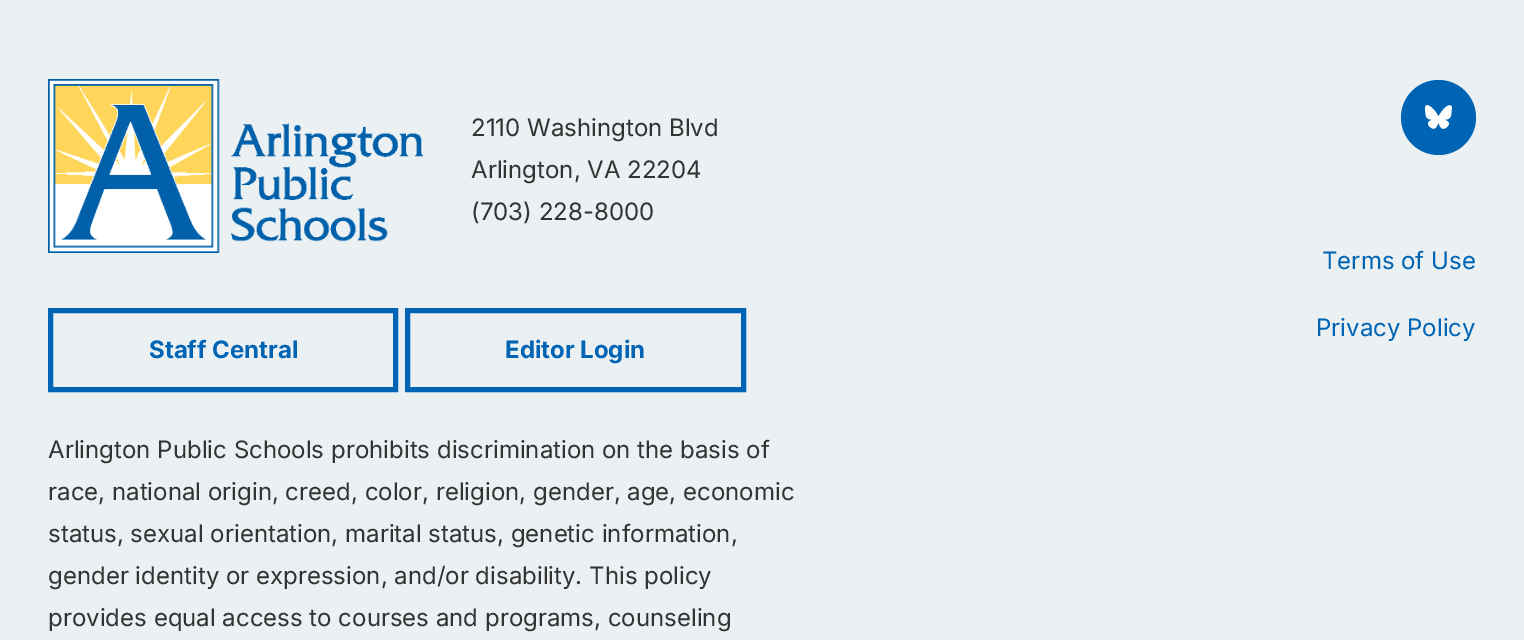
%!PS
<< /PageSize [1524 640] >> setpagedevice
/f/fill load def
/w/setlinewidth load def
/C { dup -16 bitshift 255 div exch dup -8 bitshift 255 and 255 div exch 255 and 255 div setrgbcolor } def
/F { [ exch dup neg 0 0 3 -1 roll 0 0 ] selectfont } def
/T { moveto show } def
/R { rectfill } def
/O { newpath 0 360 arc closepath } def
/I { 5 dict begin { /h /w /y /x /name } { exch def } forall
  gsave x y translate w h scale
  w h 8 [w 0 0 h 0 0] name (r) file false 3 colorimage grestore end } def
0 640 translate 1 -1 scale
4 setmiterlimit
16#EBF0F3 C
0 0 1524 640 R
(1.rgb) 48 79 375 174 I
/Inter-Regular 24 F
16#333333 C
(2110 Washington Blvd) 471 136 T
(Arlington, VA 22204) 471 178 T
(\(703\) 228-8000) 471 220 T
16#0064B5 C
5 w
50.5 310.5 345 79 rectstroke
/Inter-Bold 24 F
(Staff Central) 149 358 T
407.5 310.5 336 79 rectstroke
(Editor Login) 505 358 T
/Inter-Regular 24 F
16#333333 C
(Arlington Public Schools prohibits discrimination on the basis of) 48 458 T
(race, national origin, creed, color, religion, gender, age, economic) 48 500 T
(status, sexual orientation, marital status, genetic information,) 48 542 T
(gender identity or expression, and/or disability. This policy) 48 584 T
(provides equal access to courses and programs, counseling) 48 626 T
16#0064B5 C
1438.5 117.5 37.5 O f
(2.rgb) 1425 105 27 24 I
(Terms of Use) 1322 269 T
(Privacy Policy) 1316 336 T
showpage
